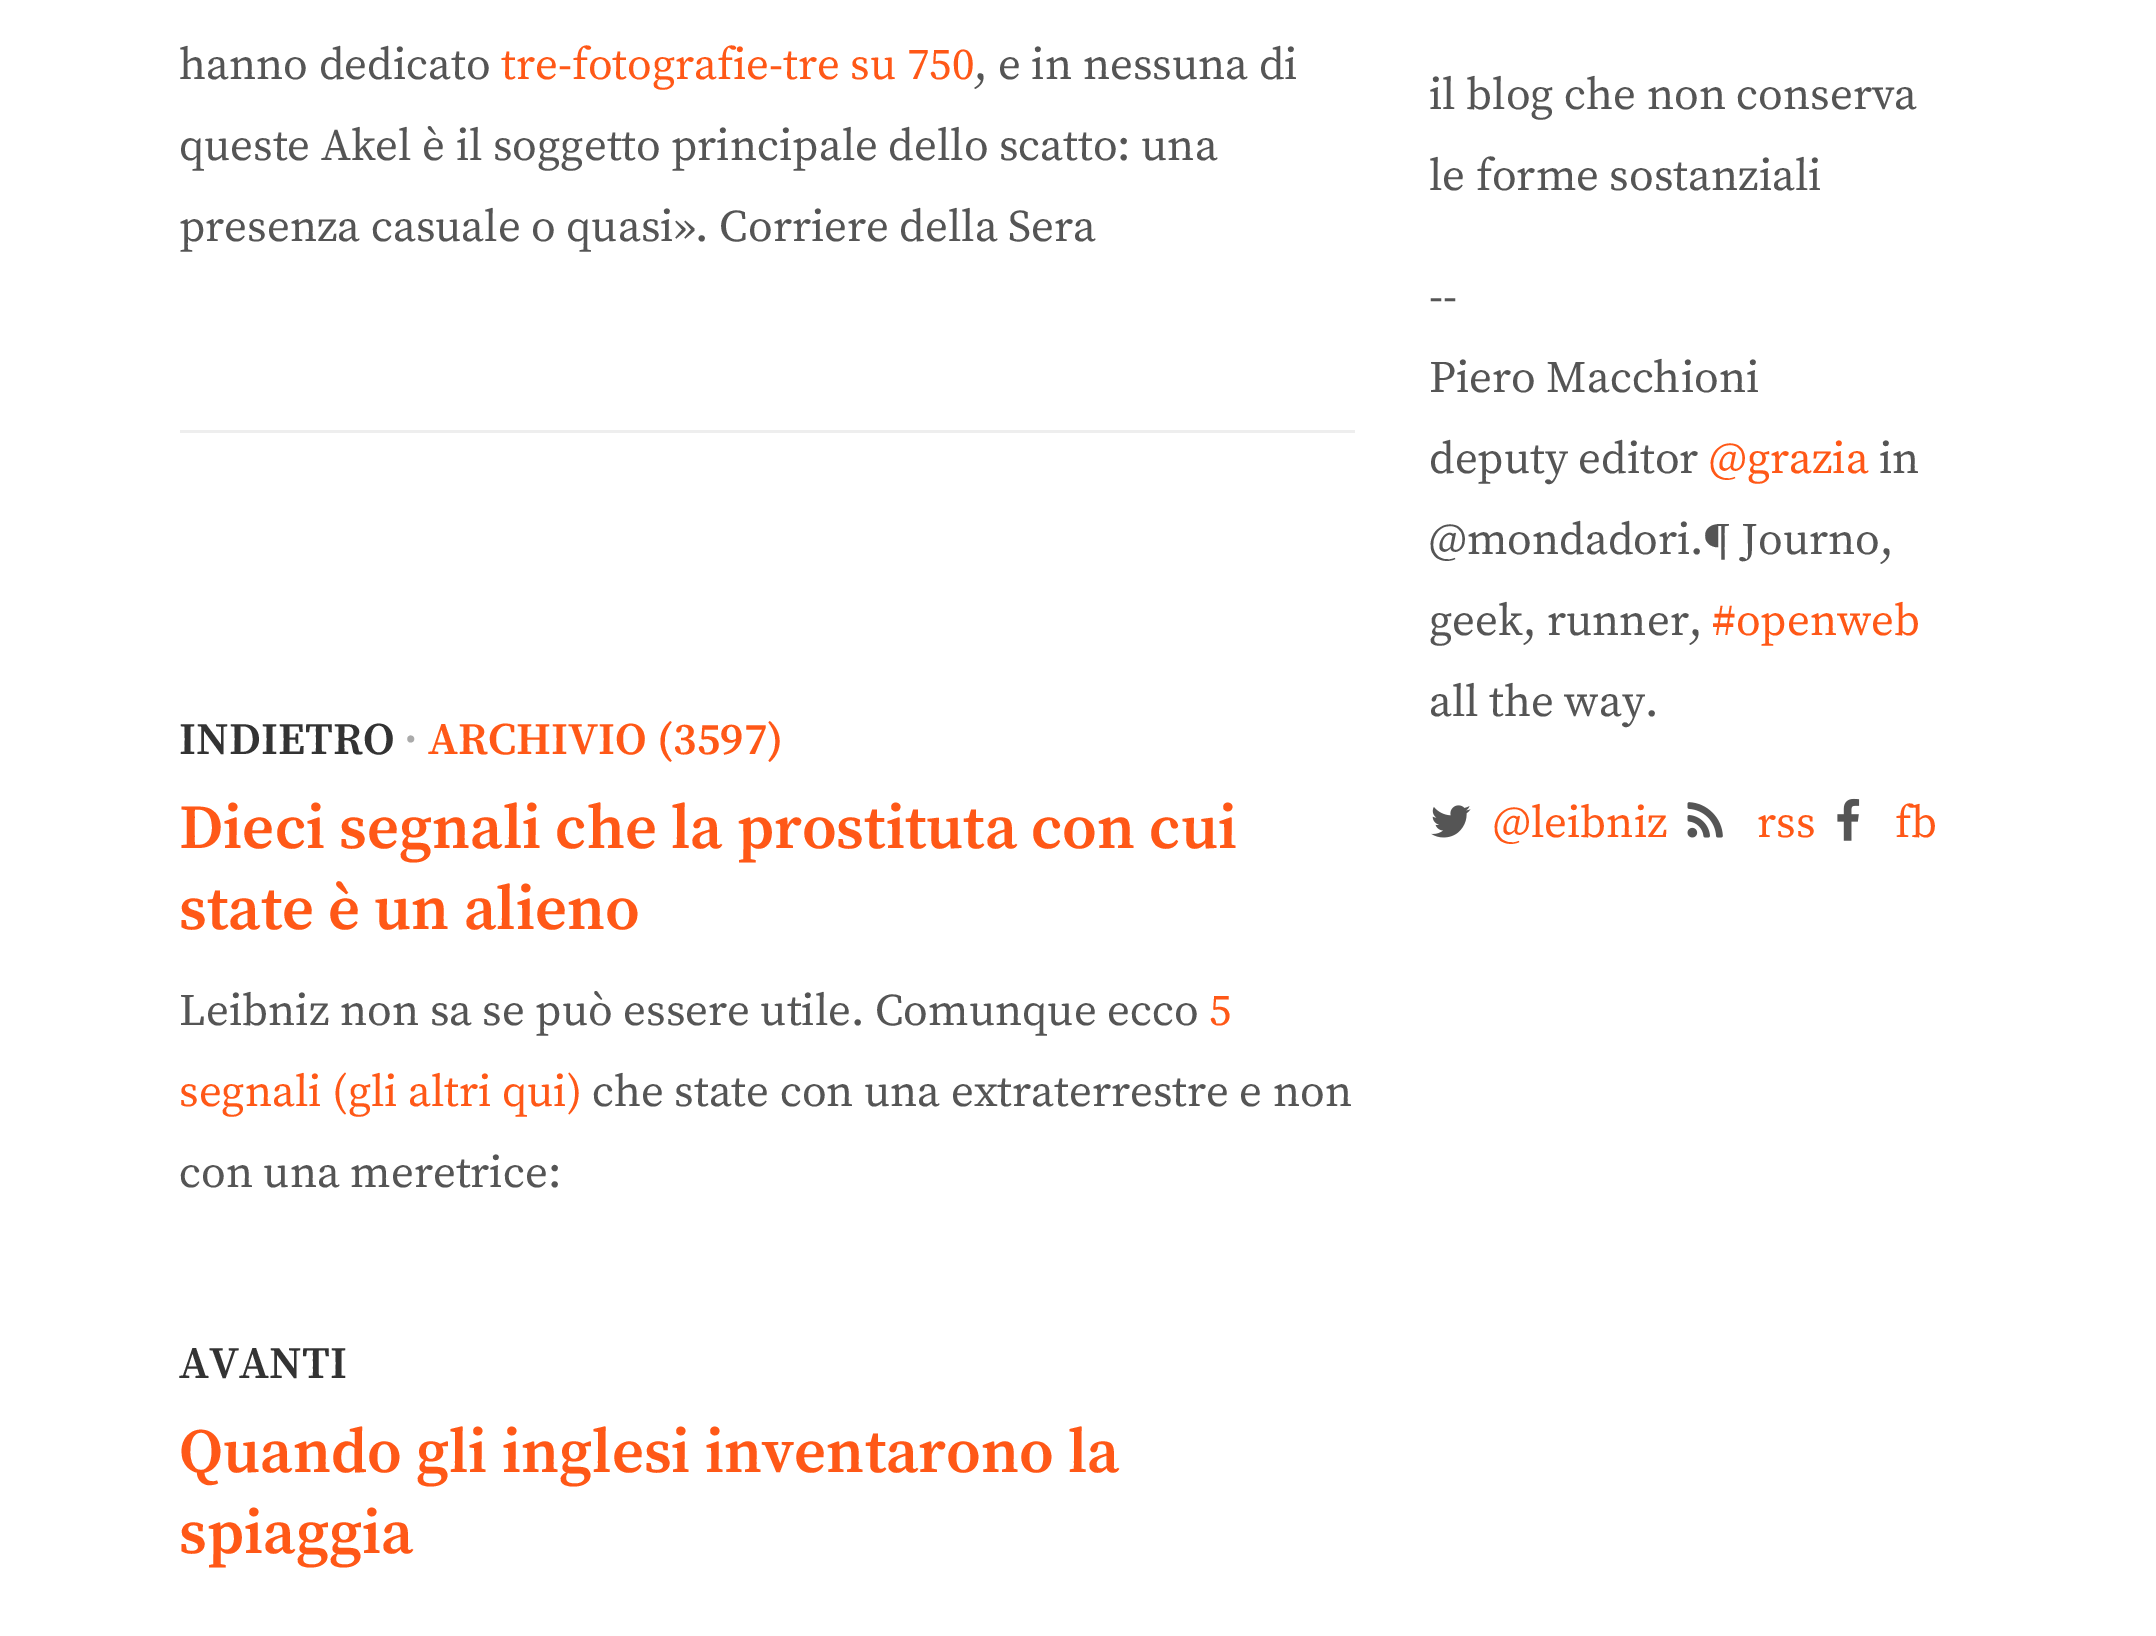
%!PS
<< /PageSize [2156 1636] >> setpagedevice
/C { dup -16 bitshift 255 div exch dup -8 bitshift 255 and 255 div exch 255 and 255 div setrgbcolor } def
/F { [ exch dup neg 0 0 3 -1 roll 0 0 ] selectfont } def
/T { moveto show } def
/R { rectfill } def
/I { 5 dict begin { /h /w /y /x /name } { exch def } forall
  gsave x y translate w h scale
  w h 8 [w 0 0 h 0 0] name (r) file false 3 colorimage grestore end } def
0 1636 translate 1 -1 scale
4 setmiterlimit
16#FFFFFF C
0 0 2156 1636 R
/SourceSerifPro-Regular 45 F
16#555555 C
(hanno dedicato) 179 79 T
16#FF5817 C
(tre-fotografie-tre su 750) 501 79 T
16#555555 C
(, e in nessuna di) 974 79 T
(queste Akel è il soggetto principale dello scatto: una) 179 160 T
(presenza casuale o quasi». Corriere della Sera) 179 241 T
16#EEEEEE C
180 430 1175 3 R
/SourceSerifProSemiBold-SemiBold 45 F
16#333333 C
(INDIETRO) 179 754 T
16#AAAAAA C
(·) 404 754 T
16#FF5817 C
(ARCHIVIO \(3597\)) 428 754 T
/SourceSerifProSemiBold-SemiBold 62.5 F
(Dieci segnali che la prostituta con cui) 179 848 T
(state è un alieno) 179 929 T
/SourceSerifPro-Regular 45 F
16#555555 C
(Leibniz non sa se può essere utile. Comunque ecco) 179 1025 T
16#FF5817 C
(5) 1209 1025 T
(segnali \(gli altri qui\)) 179 1106 T
16#555555 C
(che state con una extraterrestre e non) 592 1106 T
(con una meretrice:) 179 1187 T
/SourceSerifProSemiBold-SemiBold 45 F
16#333333 C
(AVANTI) 179 1378 T
/SourceSerifProSemiBold-SemiBold 62.5 F
16#FF5817 C
(Quando gli inglesi inventarono la) 179 1472 T
(spiaggia) 179 1553 T
/SourceSerifPro-Regular 45 F
16#555555 C
(il blog che non conserva) 1429 109 T
(le forme sostanziali) 1429 190 T
(--) 1429 311 T
(Piero Macchioni) 1429 392 T
(deputy editor) 1429 473 T
16#FF5817 C
(@grazia) 1709 473 T
16#555555 C
(in) 1879 473 T
(@mondadori.¶ Journo,) 1429 554 T
(geek, runner,) 1429 635 T
16#FF5817 C
(#openweb) 1712 635 T
16#555555 C
(all the way.) 1429 716 T
(1.rgb) 1431 805 40 33 I
16#FF5817 C
(@leibniz) 1493 837 T
(2.rgb) 1687 802 36 36 I
(rss) 1757 837 T
(3.rgb) 1837 798 23 43 I
(fb) 1895 837 T
showpage
